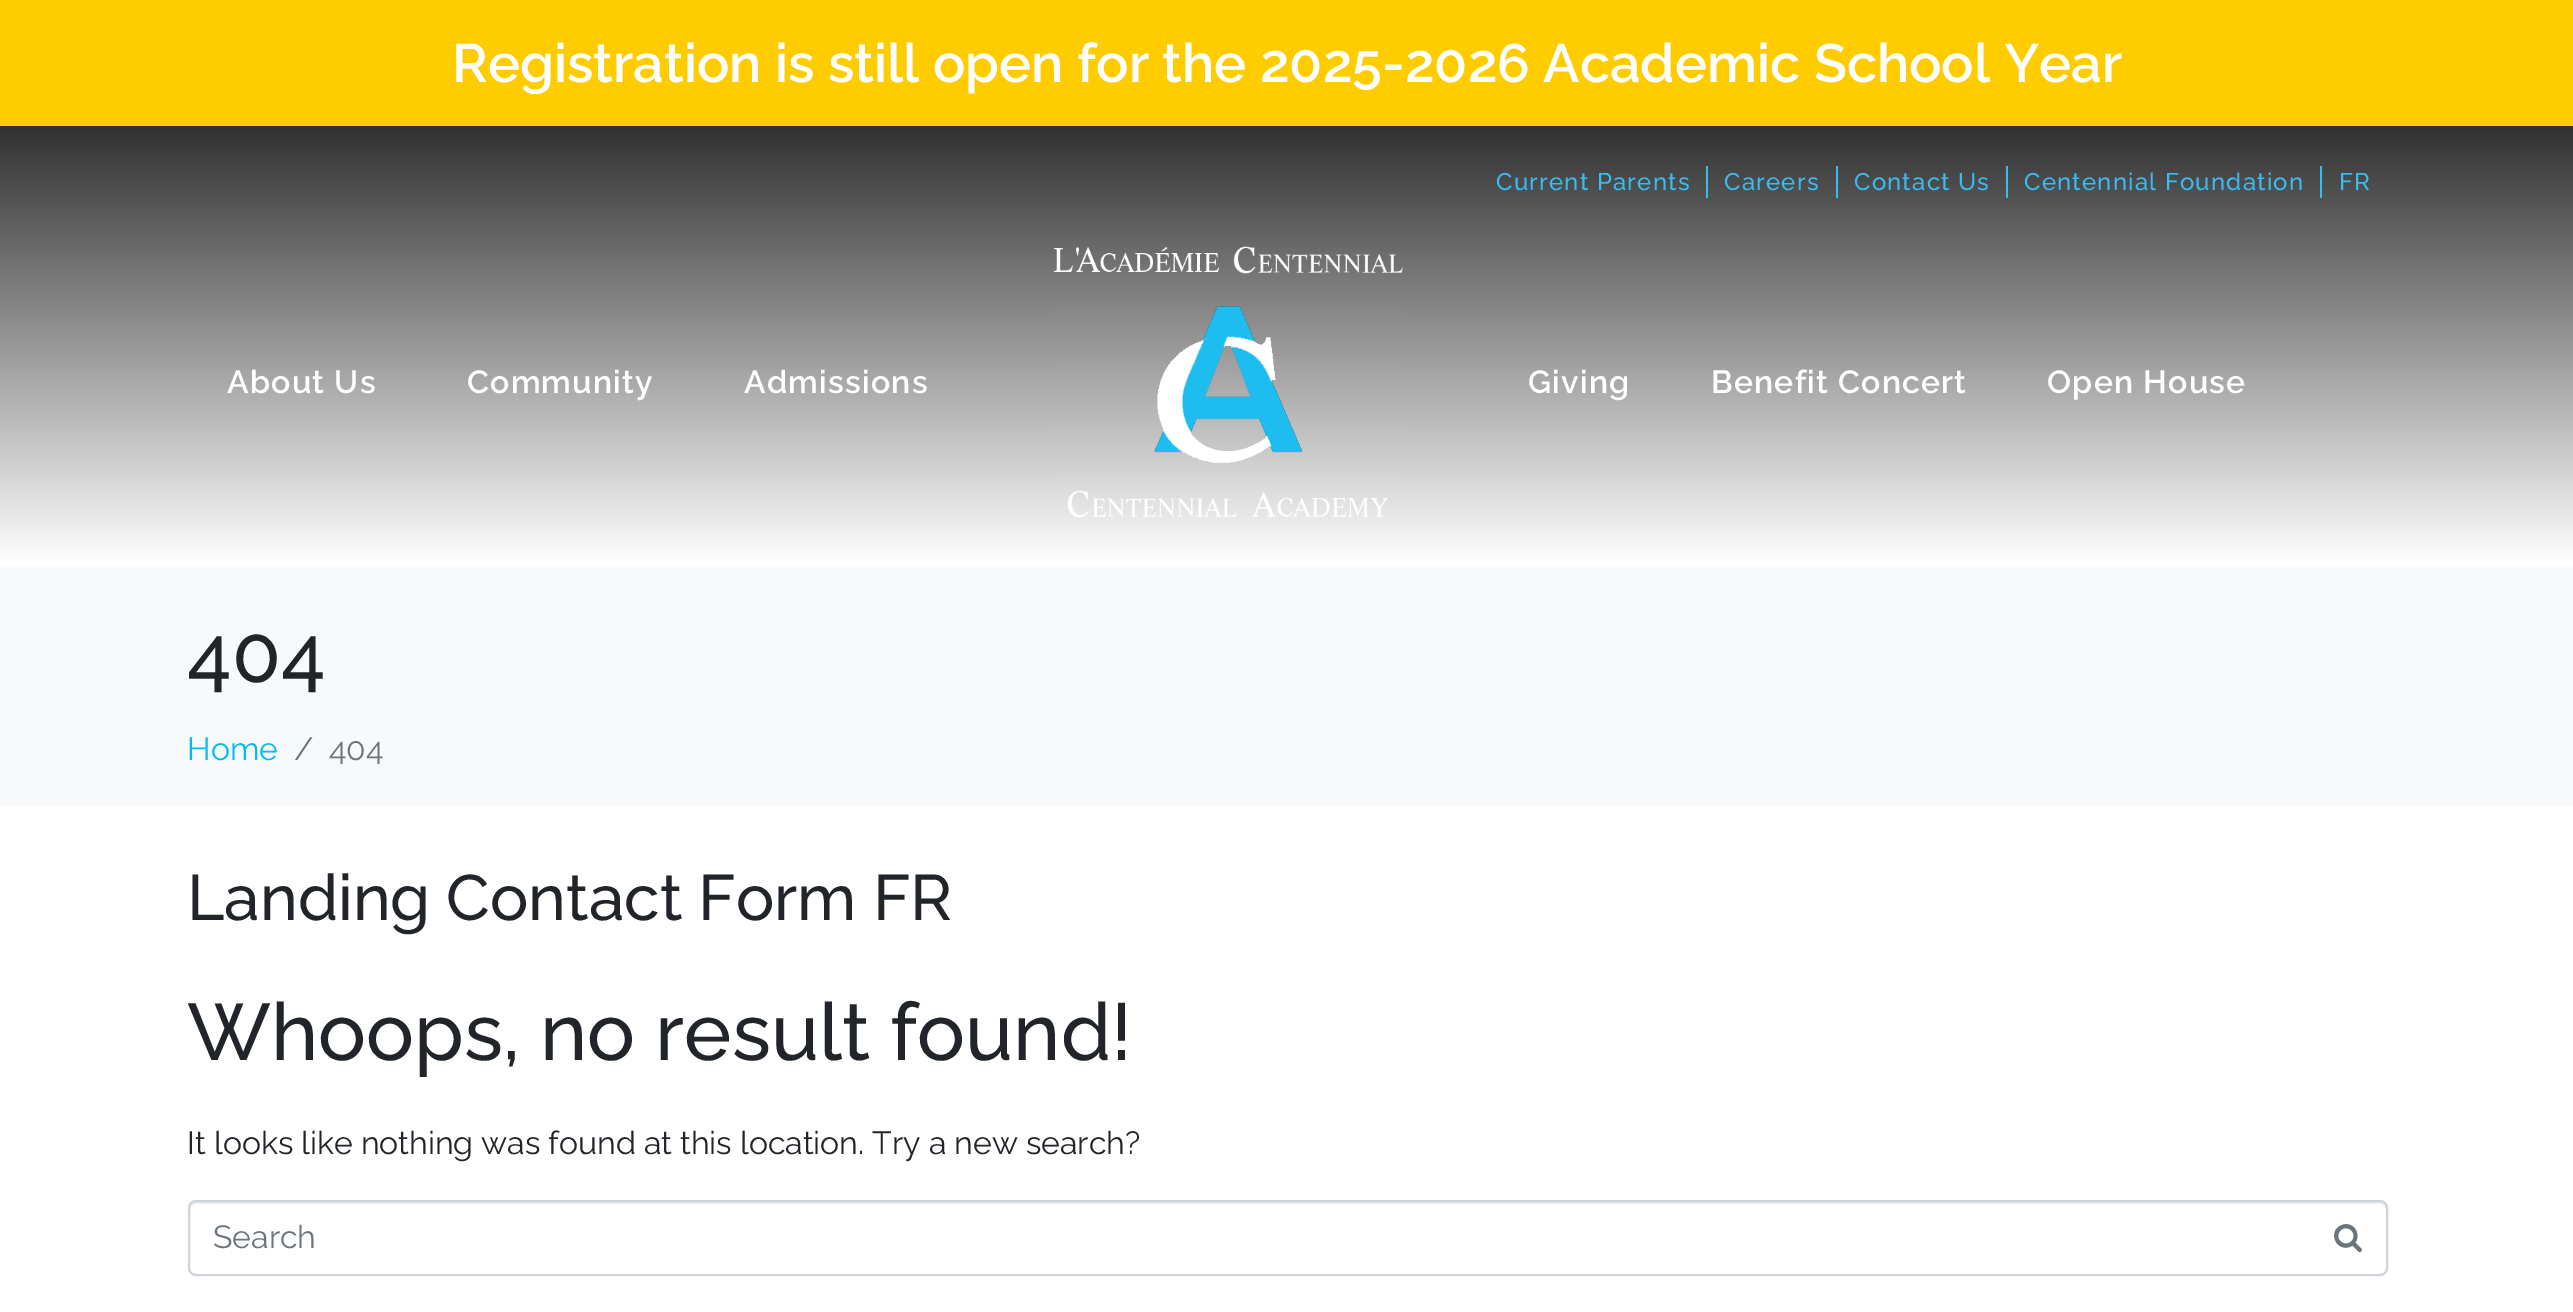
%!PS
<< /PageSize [2573 1312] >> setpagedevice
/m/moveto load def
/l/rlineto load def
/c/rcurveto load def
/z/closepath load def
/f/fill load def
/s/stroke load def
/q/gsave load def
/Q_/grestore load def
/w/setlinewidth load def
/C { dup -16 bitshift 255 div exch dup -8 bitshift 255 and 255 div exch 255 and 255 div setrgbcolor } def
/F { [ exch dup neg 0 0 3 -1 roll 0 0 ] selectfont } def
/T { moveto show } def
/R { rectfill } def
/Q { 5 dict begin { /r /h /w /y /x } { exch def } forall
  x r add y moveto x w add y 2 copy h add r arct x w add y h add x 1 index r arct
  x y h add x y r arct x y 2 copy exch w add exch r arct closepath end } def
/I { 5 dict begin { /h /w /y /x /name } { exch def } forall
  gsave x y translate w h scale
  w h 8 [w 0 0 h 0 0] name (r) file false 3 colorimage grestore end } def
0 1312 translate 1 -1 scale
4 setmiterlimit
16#FFFFFF C
0 0 2573 1312 R
16#FFCC00 C
0 0 2573 126 R
/Raleway-SemiBold 54 F
16#FFFFFF C
(Registration is still open for the 2025-2026 Academic School Year) 452 82 T
q 0 126 m 2573 0 l 0 435 l -2573 0 l z clip newpath
<< /ShadingType 2 /ColorSpace /DeviceRGB /Coords [1287 126 1287 566] /Extend [true true] /Function << /FunctionType 2 /Domain [0 1] /C0 [.192 .192 .192] /C1 [1 1 1] /N 1 >> >> shfill Q_
/Raleway-Medium 24 F
16#38BCF1 C
1496 190 m 1.2 0 (Current Parents) ashow
1706 166 2 32 R
1724 190 m 1.2 0 (Careers) ashow
1836 166 2 32 R
1854 190 m 1.2 0 (Contact Us) ashow
2006 166 2 32 R
2024 190 m 1.2 0 (Centennial Foundation) ashow
2320 166 2 32 R
2339 190 m 1.2 0 (FR) ashow
/Raleway-SemiBold 32 F
16#FFFFFF C
227 393 m 1.2 0 (About Us) ashow
467 393 m 1.2 0 (Community) ashow
744 393 m 1.2 0 (Admissions) ashow
(1.rgb) 1053 246 350 272 I
1528 393 m 1.2 0 (Giving) ashow
1711 393 m 1.2 0 (Benefit Concert) ashow
2047 393 m 1.2 0 (Open House) ashow
16#F8F9FA C
0 566 2573 240 R
/Raleway-Medium 80 F
16#212529 C
(404) 187 682 T
/Raleway-Regular 32 F
16#00BDF2 C
(Home) 187 760 T
16#6C757D C
(/) 294 760 T
(404) 329 760 T
/Raleway-Medium 64 F
16#212529 C
(Landing Contact Form FR) 187 920 T
/Raleway-Medium 80 F
(Whoops, no result found!) 187 1060 T
/Raleway-Regular 32 F
(It looks like nothing was found at this location. Try a new search?) 187 1154 T
16#ECECEC C
196 1204 m 2184 0 l 3 0 6 3 6 6 c 0 -2 l 0 -3 -3 -6 -6 -6 c -2184 0 l -3 0 -6 3 -6 6 c 0 2 l 0 -3 3 -6 6 -6 c z f
16#CED4DA C
2 w
189 1201 2198 74 7 Q s
16#6C757D C
(Search) 213 1248 T
(2.rgb) 2334 1224 28 29 I
showpage
